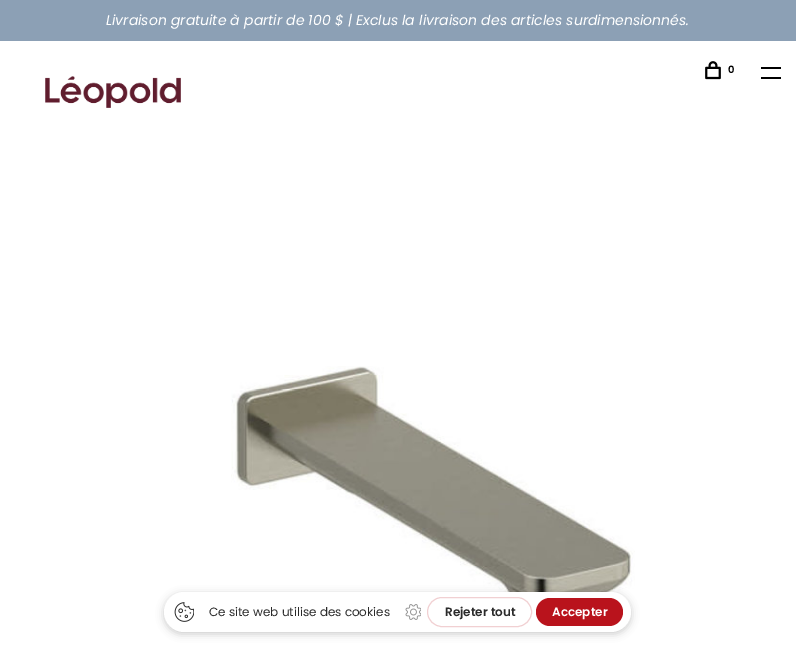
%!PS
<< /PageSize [796 662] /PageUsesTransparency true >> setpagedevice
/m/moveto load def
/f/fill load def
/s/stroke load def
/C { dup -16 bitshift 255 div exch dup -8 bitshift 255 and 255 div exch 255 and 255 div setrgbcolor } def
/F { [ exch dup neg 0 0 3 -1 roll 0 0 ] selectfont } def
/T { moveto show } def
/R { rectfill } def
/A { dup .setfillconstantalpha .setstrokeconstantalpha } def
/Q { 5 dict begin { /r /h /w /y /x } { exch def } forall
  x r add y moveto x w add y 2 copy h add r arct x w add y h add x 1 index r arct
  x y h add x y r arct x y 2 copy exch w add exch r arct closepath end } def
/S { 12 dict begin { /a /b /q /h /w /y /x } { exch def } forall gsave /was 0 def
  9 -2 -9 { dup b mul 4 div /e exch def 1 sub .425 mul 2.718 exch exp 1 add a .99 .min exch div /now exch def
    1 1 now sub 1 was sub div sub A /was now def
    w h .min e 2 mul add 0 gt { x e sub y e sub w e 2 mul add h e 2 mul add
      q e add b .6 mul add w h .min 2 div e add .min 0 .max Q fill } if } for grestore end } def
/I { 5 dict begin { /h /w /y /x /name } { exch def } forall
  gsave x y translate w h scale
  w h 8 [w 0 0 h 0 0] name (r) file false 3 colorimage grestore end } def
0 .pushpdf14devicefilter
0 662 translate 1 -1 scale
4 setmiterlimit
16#FFFFFF C
0 0 796 662 R
16#8CA0B5 C
0 0 796 41 R
/Poppins-Italic 14 F
16#FFFFFF C
(Livraison gratuite à partir de 100 $ | Exclus la livraison des articles surdimensionnés.) 106 25 T
(1.rgb) 705 61 16 19 I
/Poppins-SemiBold 10 F
16#000000 C
728 73 m 1 0 (0) ashow
761 67 20 2 R
761 77 20 2 R
(2.rgb) 45 76 136 32 I
(3.rgb) 231 366 404 246 I
164 594 467 40 20 4 .2 S
16#FFFFFF C
164 592 467 40 20 Q f
(4.rgb) 174 602 20 20 I
/Poppins-Regular 12 F
16#2A2A2A C
(Ce site web utilise des cookies) 209 616 T
(5.rgb) 405 604 16 16 I
16#F1D0D2 C
427.5 597.5 104 29 14.5 Q s
/Poppins-SemiBold 12 F
16#2A2A2A C
(Rejeter tout) 445 616 T
16#B9131C C
536 598 87 28 14 Q f
16#FFFFFF C
(Accepter) 552 616 T
.poppdf14devicefilter showpage
